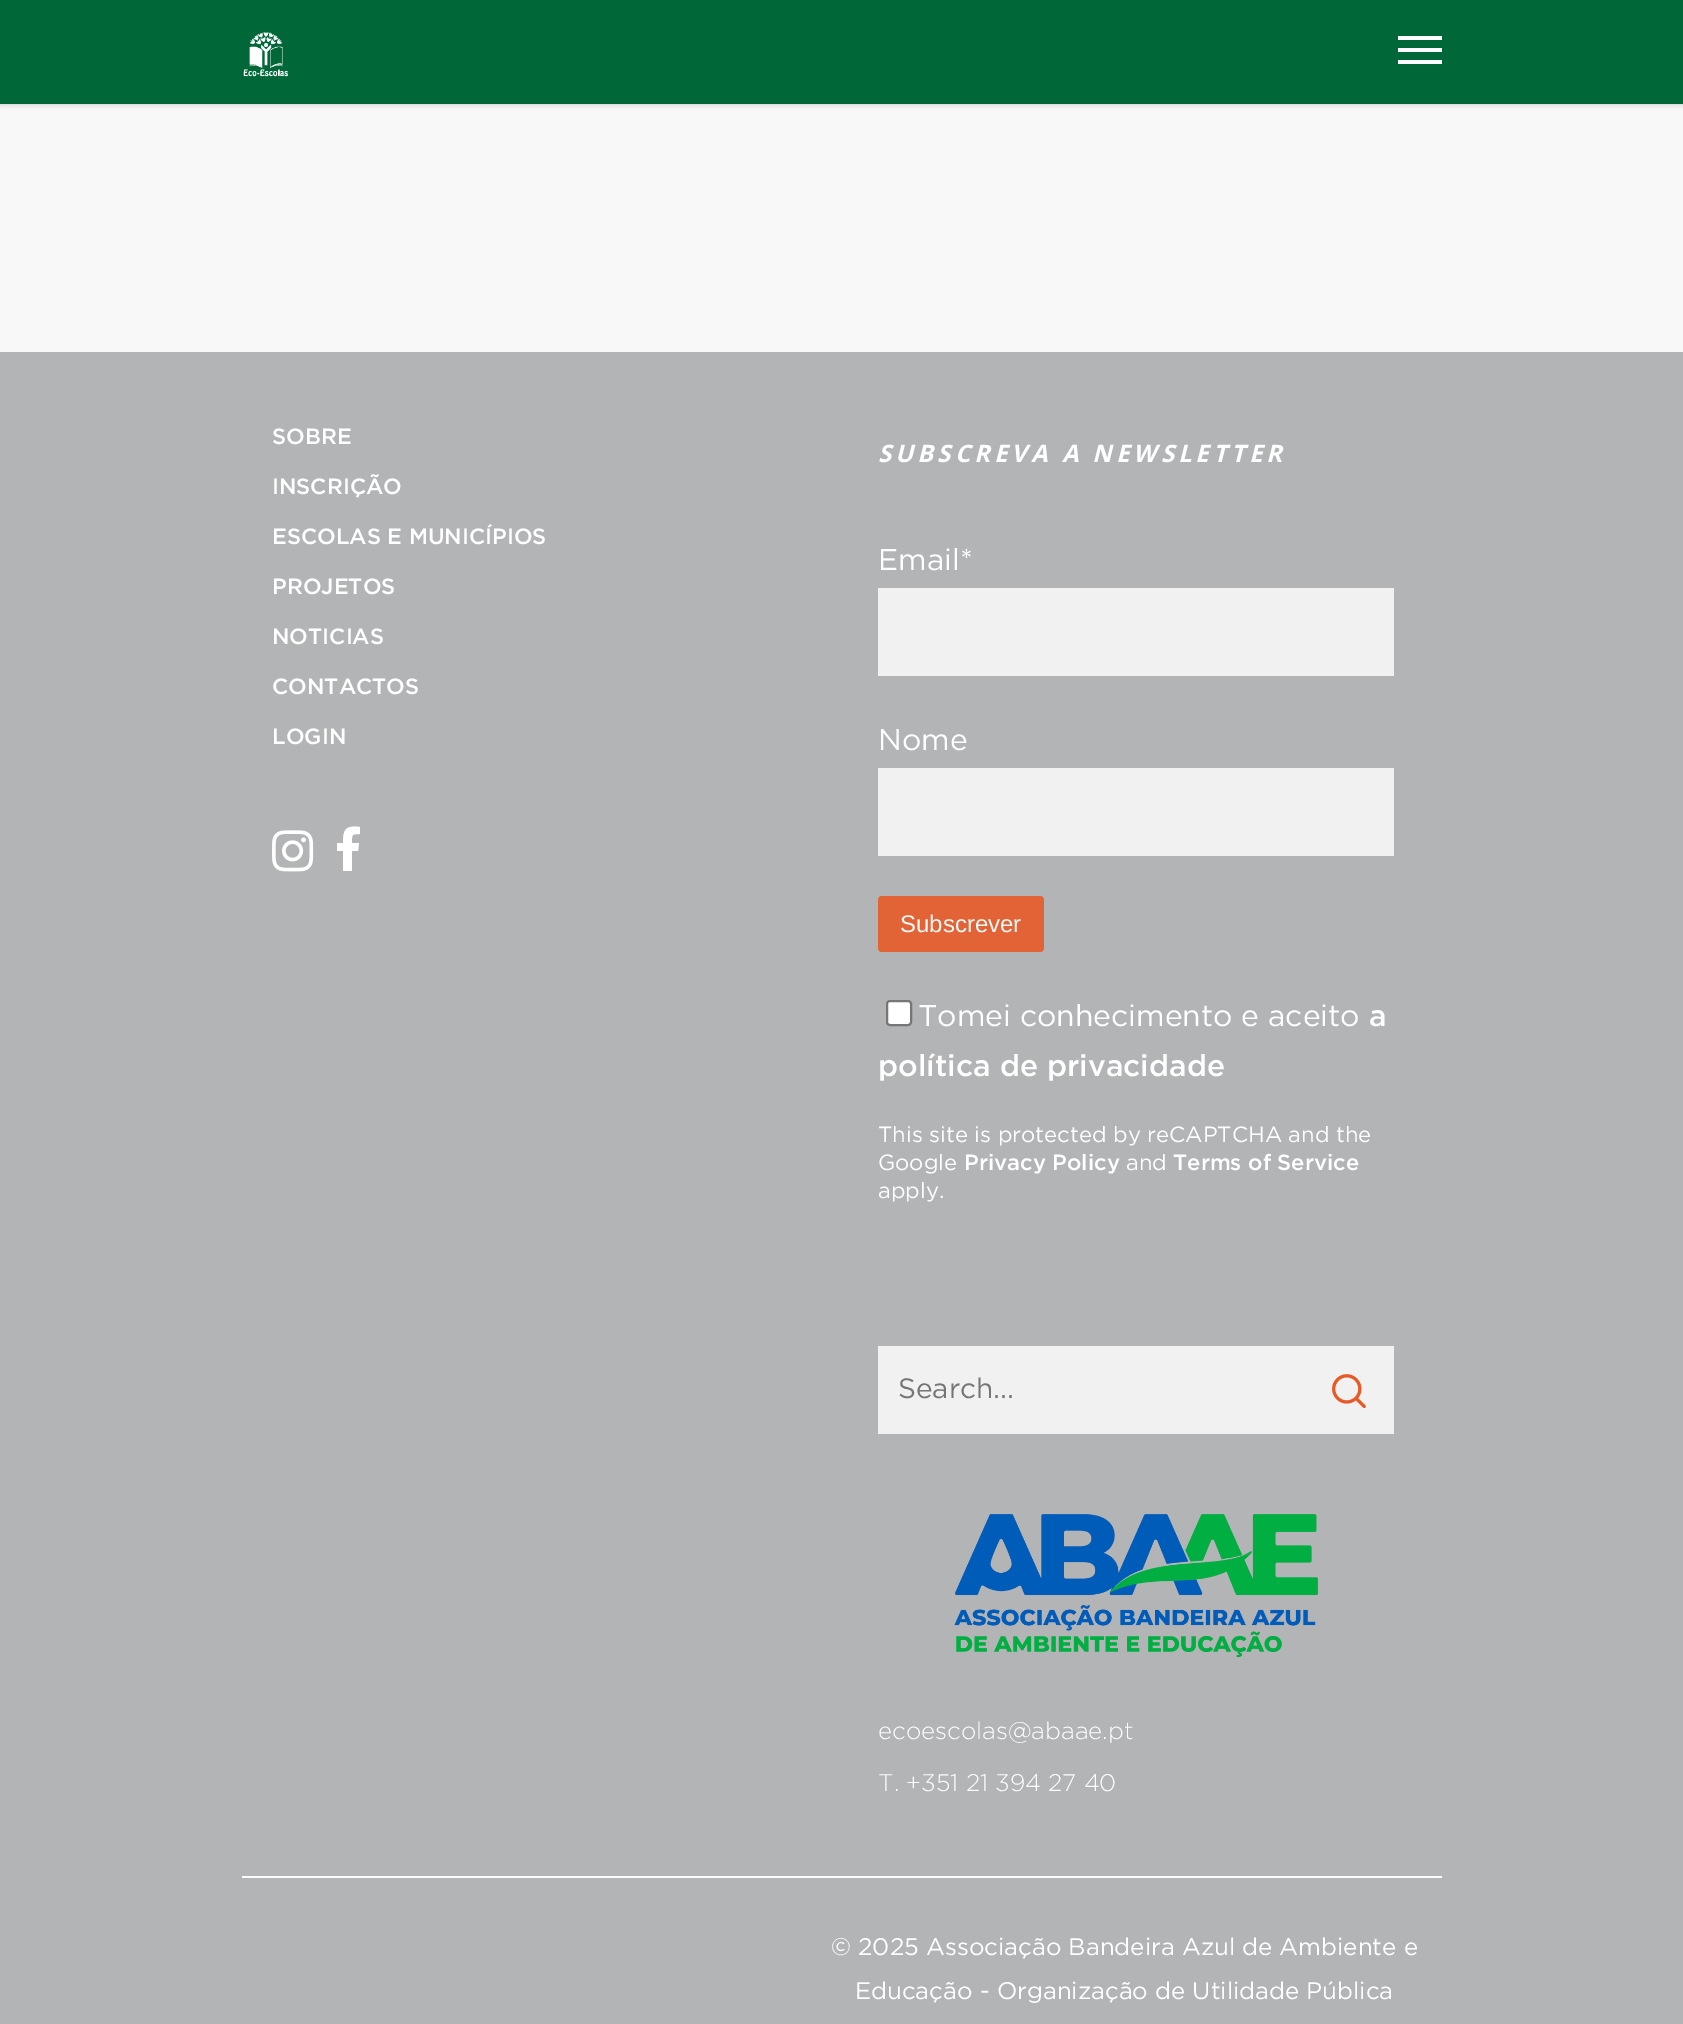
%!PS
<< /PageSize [1683 2024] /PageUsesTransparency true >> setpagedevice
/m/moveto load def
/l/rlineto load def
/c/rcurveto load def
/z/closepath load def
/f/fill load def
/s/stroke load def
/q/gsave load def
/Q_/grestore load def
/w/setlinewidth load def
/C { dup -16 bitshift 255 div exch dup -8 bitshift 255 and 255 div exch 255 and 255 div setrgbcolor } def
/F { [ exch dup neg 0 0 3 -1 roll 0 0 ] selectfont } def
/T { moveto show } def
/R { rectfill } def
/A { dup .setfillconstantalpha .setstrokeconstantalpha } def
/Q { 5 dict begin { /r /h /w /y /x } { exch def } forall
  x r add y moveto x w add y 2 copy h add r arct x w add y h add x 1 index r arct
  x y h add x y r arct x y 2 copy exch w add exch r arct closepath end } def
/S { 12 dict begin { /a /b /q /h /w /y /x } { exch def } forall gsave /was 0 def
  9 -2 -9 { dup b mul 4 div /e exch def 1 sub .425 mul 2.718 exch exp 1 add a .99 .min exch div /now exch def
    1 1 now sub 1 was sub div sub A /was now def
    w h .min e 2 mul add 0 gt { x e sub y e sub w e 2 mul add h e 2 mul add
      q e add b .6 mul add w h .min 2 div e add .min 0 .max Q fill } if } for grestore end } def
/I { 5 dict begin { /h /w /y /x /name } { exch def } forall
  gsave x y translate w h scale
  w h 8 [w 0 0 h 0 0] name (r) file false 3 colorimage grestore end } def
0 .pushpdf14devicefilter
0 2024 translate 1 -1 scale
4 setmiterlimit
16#B2B4B6 C
0 0 1683 2024 R
16#F8F8F8 C
0 104 1683 248 R
16#000000 C
0 0 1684 104 0 3 .22 S
16#006838 C
0 0 1683 104 R
(1.rgb) 243 31 46 46 I
16#FFFFFF C
1398 36 44 4 R
1398 60 44 4 R
1398 48 44 4 R
242 1876 1200 2 R
/Gotham-Medium 22 F
(SOBRE) 272 444 T
(INSCRIÇÃO) 272 494 T
(ESCOLAS E MUNICÍPIOS) 272 544 T
(PROJETOS) 272 594 T
(NOTICIAS) 272 644 T
(CONTACTOS) 272 694 T
(LOGIN) 272 744 T
(2.rgb) 272 830 42 42 I
360 827 m 0 7 l -9 0 -8 1 -8 9 c 7 0 l -1 8 l -6 0 l 0 20 l -9 0 l 0 -20 l -6 0 l 0 -8 l 6 0 l 0 -13 2 -18 17 -16 c z f
/OpenSans-BoldItalic 24 F
878 462 m 4 0 (SUBSCREVA A NEWSLETTER) ashow
/Gotham-Regular 30 F
(Email*) 878 570 T
16#F1F1F1 C
878 588 516 88 R
16#FFFFFF C
(Nome) 878 750 T
16#F1F1F1 C
878 768 516 88 R
16#E26336 C
878 896 166 56 4 Q f
/LiberationSans-Regular 24 F
16#F7F8F8 C
(Subscrever) 900 932 T
16#FFFFFF C
887 1001 24 24 3 Q q f Q_
16#767676 C
2 w
s
/Gotham-Regular 30 F
16#FFFFFF C
(Tomei conhecimento e aceito) 918 1026 T
/Gotham-Medium 30 F
(a) 1369 1026 T
(política de privacidade) 878 1076 T
/Gotham-Regular 22 F
(This site is protected by reCAPTCHA and the) 878 1142 T
(Google) 878 1170 T
/Gotham-Medium 22 F
(Privacy Policy) 964 1170 T
/Gotham-Regular 22 F
(and) 1126 1170 T
/Gotham-Medium 22 F
(Terms of Service) 1173 1170 T
/Gotham-Regular 22 F
(apply.) 878 1198 T
16#F1F1F1 C
878 1346 516 88 R
/Gotham-Regular 28 F
16#757575 C
(Search...) 898 1398 T
(3.rgb) 1332 1374 34 35 I
(4.rgb) 954 1514 364 144 I
/Gotham-Light 24 F
16#FFFFFF C
(ecoescolas@abaae.pt) 878 1739 T
(T. +351 21 394 27 40) 878 1791 T
/Gotham-Regular 24 F
(© 2025 Associação Bandeira Azul de Ambiente e) 831 1955 T
(Educação - Organização de Utilidade Pública) 855 1999 T
.poppdf14devicefilter showpage
